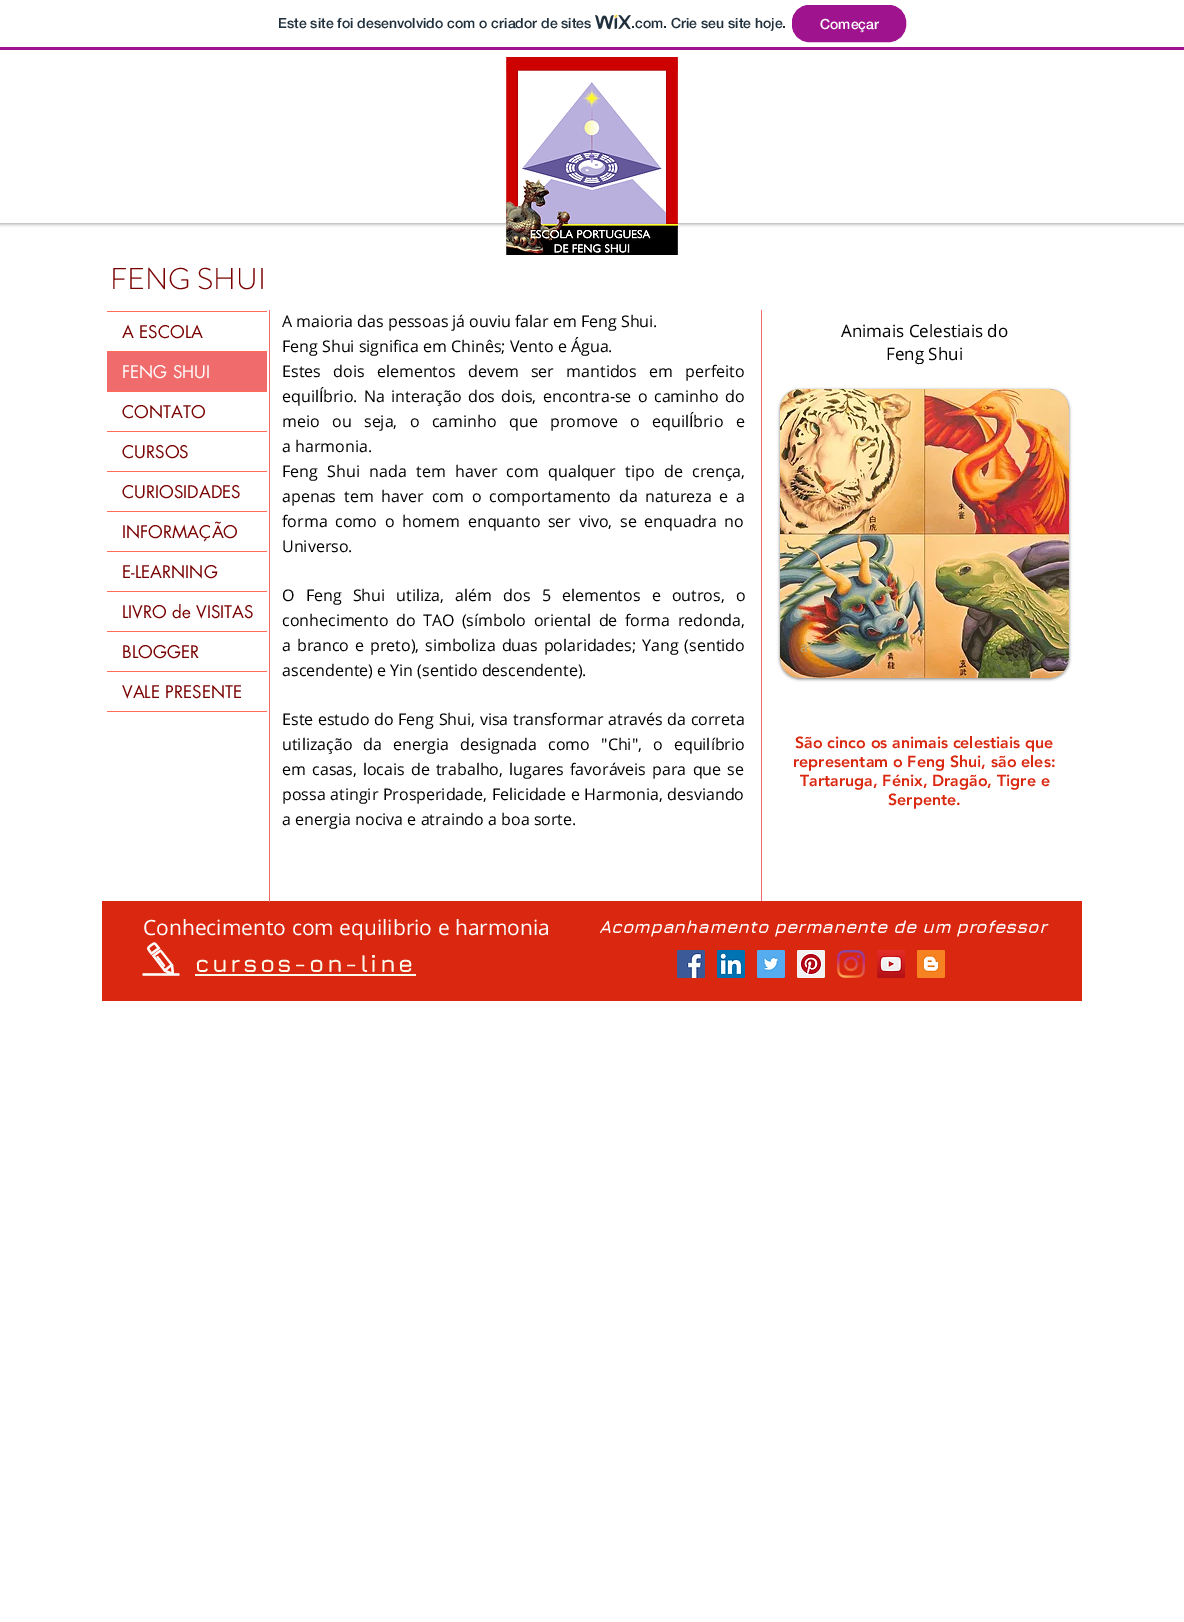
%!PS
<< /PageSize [1184 1622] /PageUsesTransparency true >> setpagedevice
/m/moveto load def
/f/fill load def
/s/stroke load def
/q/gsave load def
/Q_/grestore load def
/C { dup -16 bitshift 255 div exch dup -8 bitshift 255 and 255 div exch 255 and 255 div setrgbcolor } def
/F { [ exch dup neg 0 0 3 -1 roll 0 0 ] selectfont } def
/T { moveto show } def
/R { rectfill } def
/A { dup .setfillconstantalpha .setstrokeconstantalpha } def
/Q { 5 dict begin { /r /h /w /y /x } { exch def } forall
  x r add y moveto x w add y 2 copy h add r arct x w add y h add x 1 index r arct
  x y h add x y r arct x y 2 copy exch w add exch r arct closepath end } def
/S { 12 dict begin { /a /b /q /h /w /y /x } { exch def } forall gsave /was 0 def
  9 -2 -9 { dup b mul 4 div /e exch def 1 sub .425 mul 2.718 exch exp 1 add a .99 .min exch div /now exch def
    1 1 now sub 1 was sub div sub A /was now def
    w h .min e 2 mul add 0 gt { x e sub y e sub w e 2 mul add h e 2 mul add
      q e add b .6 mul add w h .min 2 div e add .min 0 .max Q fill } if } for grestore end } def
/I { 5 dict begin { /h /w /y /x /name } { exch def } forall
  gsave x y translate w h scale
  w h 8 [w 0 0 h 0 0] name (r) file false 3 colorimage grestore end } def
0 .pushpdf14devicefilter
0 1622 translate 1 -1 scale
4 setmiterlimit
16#FFFFFF C
0 0 1184 1622 R
q
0 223 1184 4 rectclip
16#000000 C
0 50 1184 173 0 2.5 .5 S
Q_
0 45 1184 2 R
16#A0138E C
0 47 1184 3 R
/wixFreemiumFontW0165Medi-Medium 14 F
16#20303C C
(Este site foi desenvolvido com o criador de sites) 278 28 T
(1.rgb) 595 15 36 15 I
(.com. Crie seu site hoje.) 631 28 T
16#A0138E C
792.5 5.5 113 36 16.5 Q q f Q_
s
16#FFFFFF C
(Começar) 820 29 T
(2.rgb) 506 57 172 198 I
/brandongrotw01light-Light 30 F
16#780000 C
(FENG SHUI) 110 289 T
/OpenSans-Regular 16 F
16#000000 C
(A maioria das pessoas já ouviu falar em Feng Shui.) 282 327 T
(Feng Shui significa em Chinês; Vento e Água.) 282 352 T
282 377 m 8.25 0 32 (Estes dois elementos devem ser mantidos em perfeito) widthshow
282 402 m 2.25 0 32 (equilÍbrio. Na interação dos dois, encontra-se o caminho do) widthshow
282 427 m 8.25 0 32 (meio ou seja, o caminho que promove o equilÍbrio e) widthshow
(a harmonia.) 282 452 T
282 477 m 5.25 0 32 (Feng Shui nada tem haver com qualquer tipo de crença,) widthshow
282 502 m 3.75 0 32 (apenas tem haver com o comportamento da natureza e a) widthshow
282 527 m 3.5 0 32 (forma como o homem enquanto ser vivo, se enquadra no) widthshow
(Universo.) 282 552 T
282 601 m 7 0 32 (O Feng Shui utiliza, além dos 5 elementos e outros, o) widthshow
282 626 m 3.25 0 32 (conhecimento do TAO \(símbolo oriental de forma redonda,) widthshow
282 651 m 1.75 0 32 (a branco e preto\), simboliza duas polaridades;) widthshow
642 651 m 1.75 0 32 (Yang \(sentido) widthshow
(ascendente\) e Yin \(sentido descendente\).) 282 676 T
282 725 m .5 0 32 (Este estudo do Feng Shui, visa transformar através da correta) widthshow
282 750 m 7 0 32 (utilização da energia designada como "Chi", o equilíbrio) widthshow
282 775 m 2 0 32 (em casas, locais de trabalho, lugares favoráveis para que se) widthshow
282 800 m .5 0 32 (possa atingir Prosperidade, Felicidade e Harmonia, desviando) widthshow
(a energia nociva e atraindo a boa sorte.) 282 825 T
16#F06C6C C
761 310 1 591 R
/OpenSans-Regular 17 F
16#000000 C
(Animais Celestiais do) 841 337 T
(Feng Shui) 886 360 T
780 390 289 289 20 1.5 .5 S
0.62 A
16#7C754A C
780 389 289 289 20 Q f
1 A
(3.rgb) 780 389 289 289 I
/LiberationSans-Regular 14 F
16#B0A47D C
(a) 800 652 T
/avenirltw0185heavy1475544-Black 16 F
16#DA270F C
(São cinco os animais celestiais que) 795 748 T
(representam o Feng Shui, são eles:) 793 767 T
(Tartaruga, Fénix, Dragão, Tigre e) 800 786 T
(Serpente.) 888 805 T
102 901 980 100 R
/OpenSans-Regular 21 F
16#FFFFFF C
(Conhecimento com equilibrio e harmonia) 143 935 T
/Jura-BoldItalic 18 F
(Acompanhamento permanente de um professor) 599 933 T
(4.rgb) 142 942 38 34 I
/Jura-Bold 24 F
16#FCF9EB C
195 972 m 2.4 0 (cursos-on-line) ashow
195 974 221 2 R
(5.rgb) 677 950 28 28 I
(6.rgb) 717 950 28 28 I
(7.rgb) 757 950 28 28 I
(8.rgb) 797 950 28 28 I
(9.rgb) 837 950 28 28 I
(10.rgb) 877 950 28 28 I
(11.rgb) 917 950 28 28 I
16#FF6B57 C
107 311 160 1 R
107 711 160 1 R
107 351 160 1 R
/futura-Regular 17 F
16#780000 C
(A ESCOLA) 122 338 T
16#FF6B57 C
107 391 160 1 R
16#F06C6C C
107 352 160 39 R
16#FFFFFF C
(FENG SHUI) 122 378 T
16#FF6B57 C
107 431 160 1 R
16#780000 C
(CONTATO) 122 418 T
16#FF6B57 C
107 471 160 1 R
16#780000 C
(CURSOS) 122 458 T
16#FF6B57 C
107 511 160 1 R
16#780000 C
(CURIOSIDADES) 122 498 T
16#FF6B57 C
107 551 160 1 R
16#780000 C
(INFORMAÇÃO) 122 538 T
16#FF6B57 C
107 591 160 1 R
16#780000 C
(E-LEARNING) 122 578 T
16#FF6B57 C
107 631 160 1 R
16#780000 C
(LIVRO de VISITAS) 122 618 T
16#FF6B57 C
107 671 160 1 R
16#780000 C
(BLOGGER) 122 658 T
(VALE PRESENTE) 122 698 T
16#F06C6C C
269 310 1 592 R
.poppdf14devicefilter showpage
